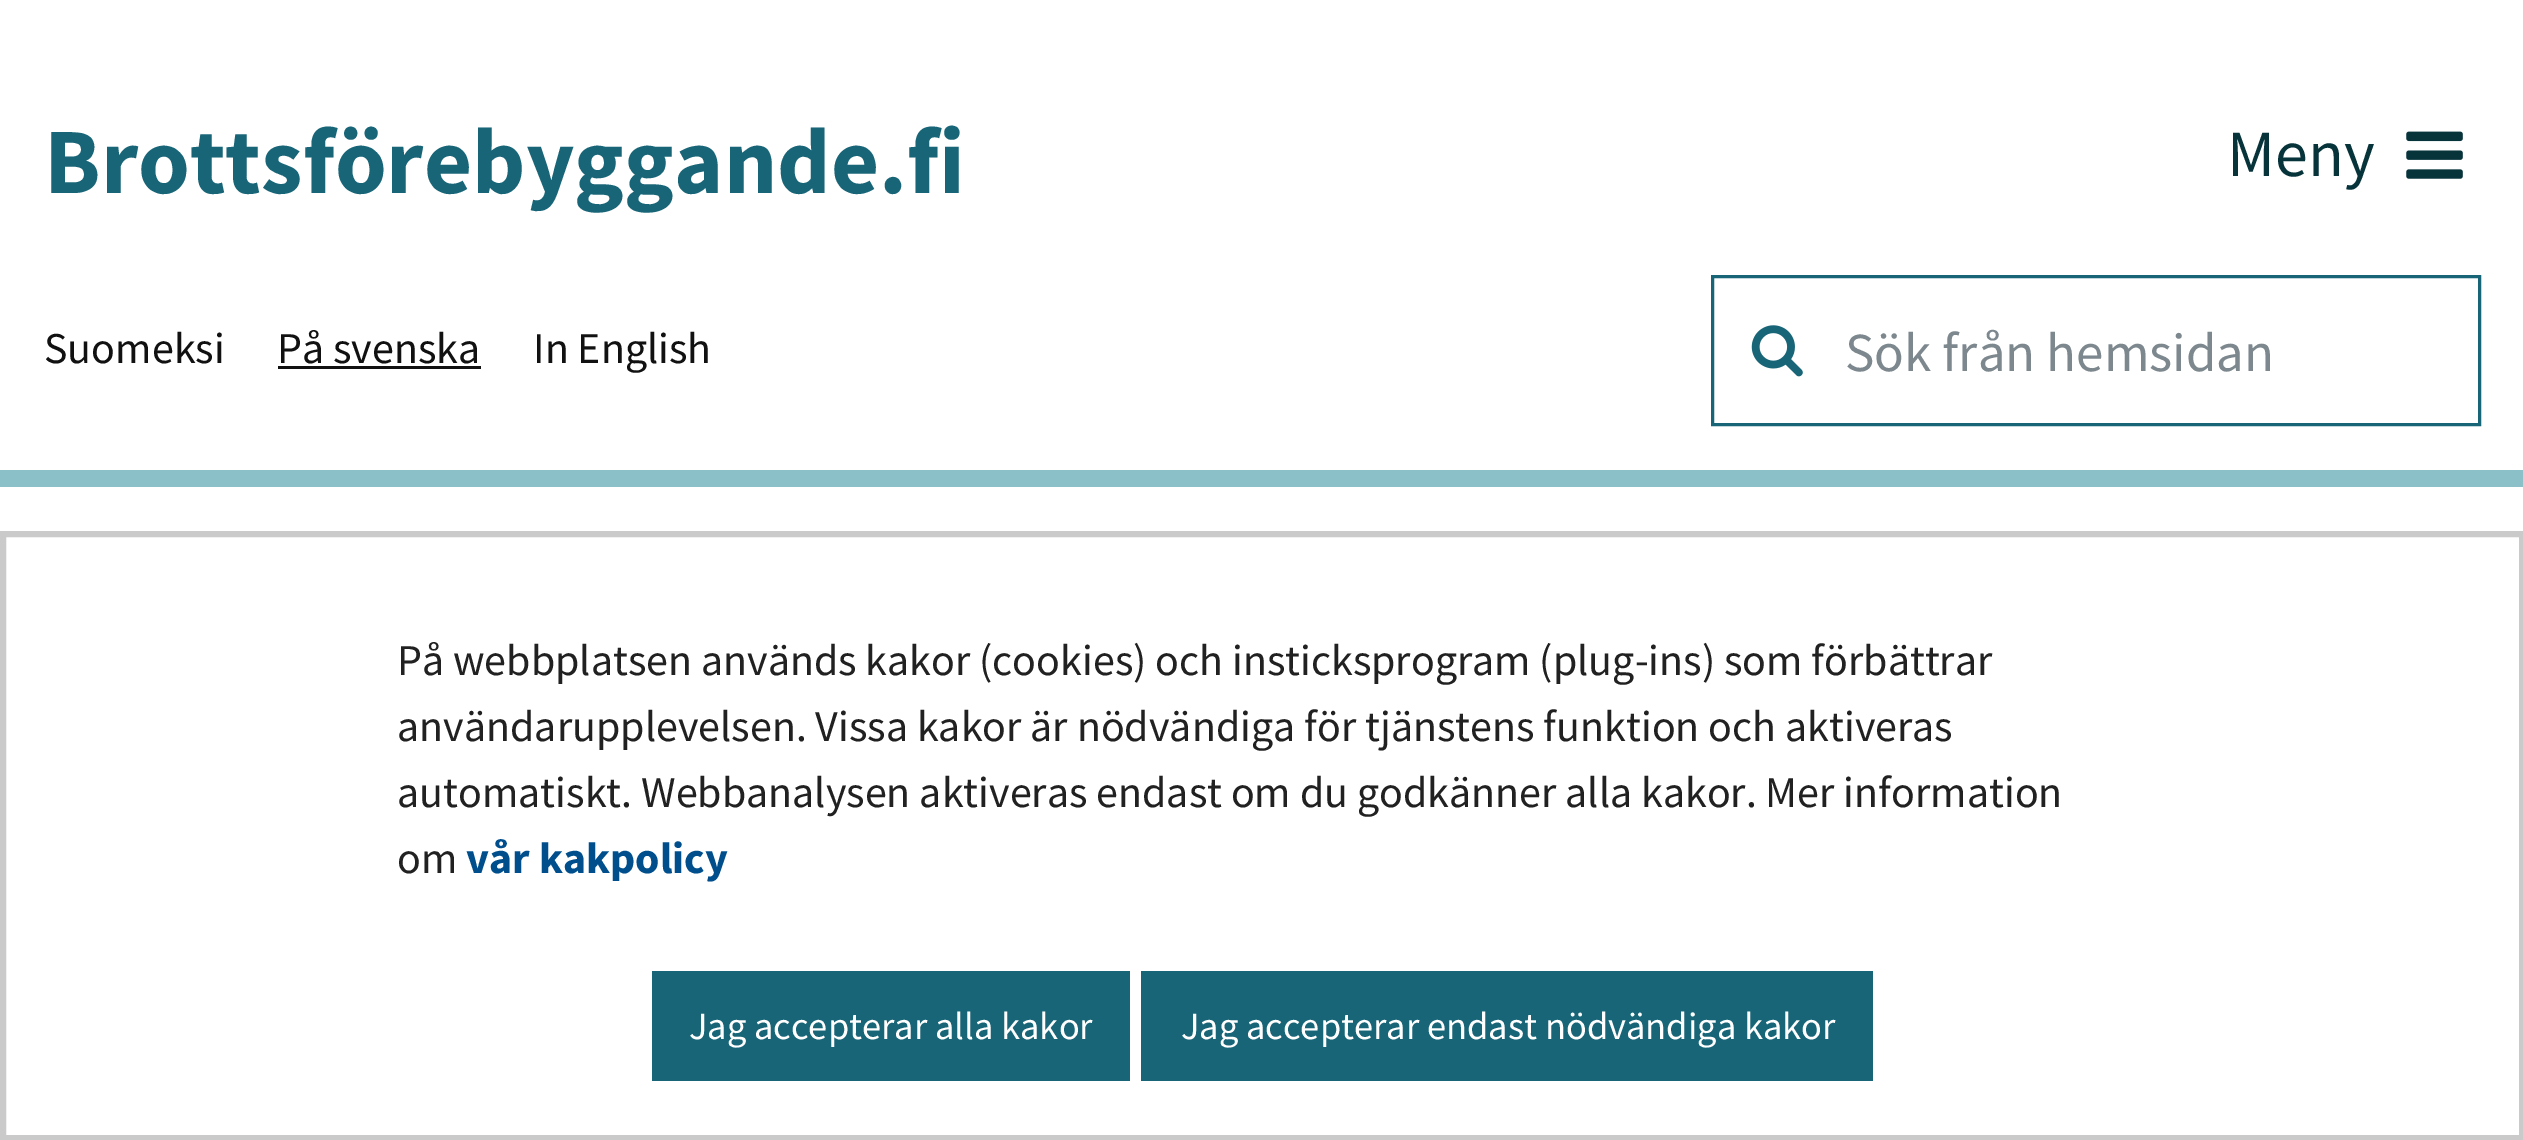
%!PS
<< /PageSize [2523 1140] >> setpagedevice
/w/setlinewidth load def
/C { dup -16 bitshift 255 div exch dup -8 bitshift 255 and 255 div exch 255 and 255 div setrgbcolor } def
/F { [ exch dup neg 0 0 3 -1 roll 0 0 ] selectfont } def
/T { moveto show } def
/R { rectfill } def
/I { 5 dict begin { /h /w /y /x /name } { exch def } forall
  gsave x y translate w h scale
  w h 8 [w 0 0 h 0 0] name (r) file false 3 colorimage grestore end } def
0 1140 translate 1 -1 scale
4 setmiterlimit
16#FFFFFF C
0 0 2523 1140 R
16#8CC0C9 C
0 470 2523 17 R
/SourceSansPro-Bold 93.5 F
16#186577 C
(Brottsförebyggande.fi) 44 193 T
/SourceSansPro-Regular 44 F
16#111111 C
(Suomeksi) 44 363 T
(På svenska) 277 363 T
278 366 203 3 R
(In English) 533 363 T
16#186577 C
3 w
1712.5 276.5 767 148 rectstroke
(1.rgb) 1751 325 52 52 I
/SourceSansPro-Regular 55 F
16#7C878E C
(Sök från hemsidan) 1845 371 T
/SourceSansPro-Regular 66 F
16#07333B C
(Meny) 2227 176 T
(2.rgb) 2406 131 57 48 I
16#CACACA C
6 w
3 534 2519 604 rectstroke
/SourceSansPro-Regular 44 F
16#212121 C
(På webbplatsen används kakor \(cookies\) och insticksprogram \(plug-ins\) som förbättrar) 397 675 T
(användarupplevelsen. Vissa kakor är nödvändiga för tjänstens funktion och aktiveras) 397 741 T
(automatiskt. Webbanalysen aktiveras endast om du godkänner alla kakor. Mer information) 397 807 T
(om) 397 873 T
/SourceSansPro-Bold 44 F
16#004F8C C
(vår kakpolicy) 466 873 T
16#186577 C
652 971 478 110 R
/SourceSansPro-Regular 38.5 F
16#FFFFFF C
(Jag accepterar alla kakor) 689 1039 T
16#186577 C
1141 971 732 110 R
16#FFFFFF C
(Jag accepterar endast nödvändiga kakor) 1181 1039 T
showpage
